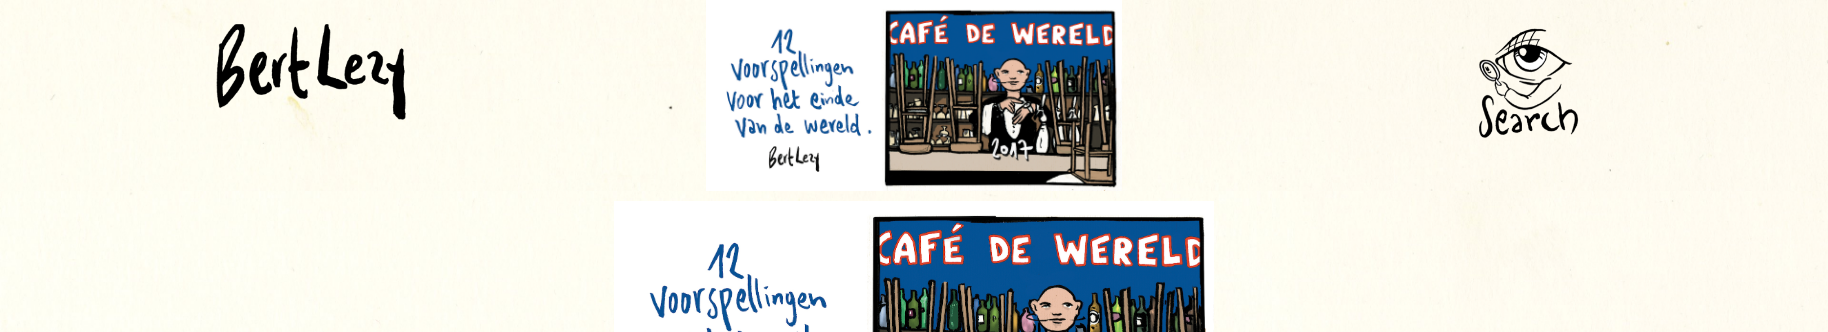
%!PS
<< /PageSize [1828 332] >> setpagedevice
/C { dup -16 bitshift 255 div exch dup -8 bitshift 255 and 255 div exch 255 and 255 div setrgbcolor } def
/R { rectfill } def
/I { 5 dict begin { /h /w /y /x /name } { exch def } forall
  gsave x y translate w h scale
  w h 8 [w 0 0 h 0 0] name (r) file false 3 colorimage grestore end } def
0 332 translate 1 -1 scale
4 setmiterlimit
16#FFFFFF C
0 0 1828 332 R
(1.rgb) 0 0 1828 191 I
(2.rgb) 216 24 190 96 I
(3.rgb) 706 0 416 191 I
(4.rgb) 1479 28 100 110 I
(5.rgb) 0 191 1828 141 I
(6.rgb) 614 201 600 131 I
showpage
